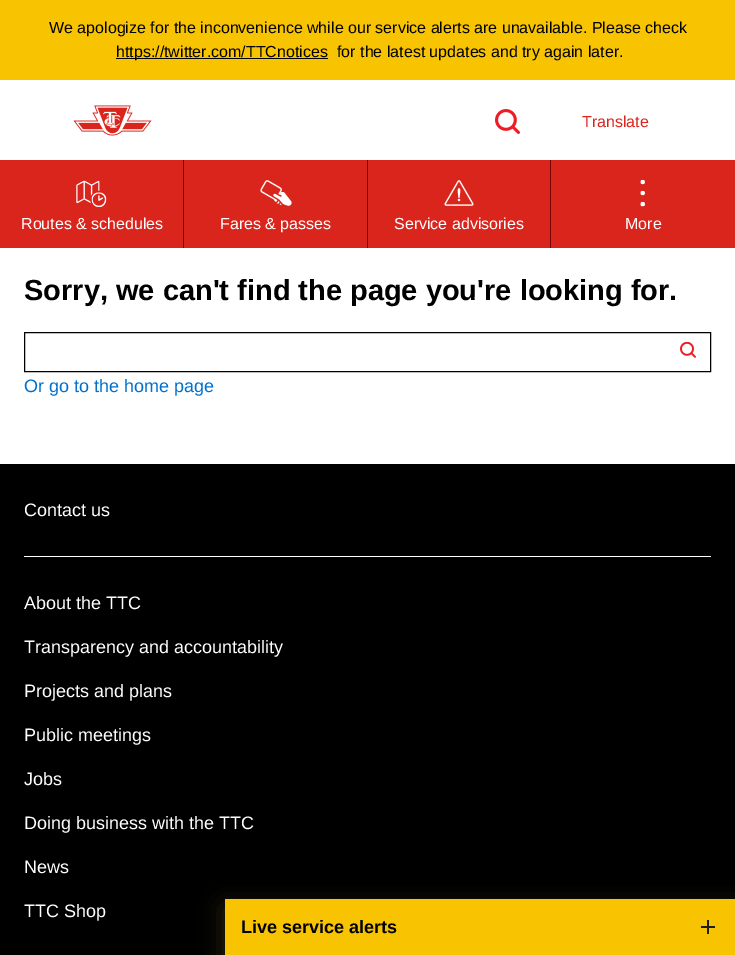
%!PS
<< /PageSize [735 955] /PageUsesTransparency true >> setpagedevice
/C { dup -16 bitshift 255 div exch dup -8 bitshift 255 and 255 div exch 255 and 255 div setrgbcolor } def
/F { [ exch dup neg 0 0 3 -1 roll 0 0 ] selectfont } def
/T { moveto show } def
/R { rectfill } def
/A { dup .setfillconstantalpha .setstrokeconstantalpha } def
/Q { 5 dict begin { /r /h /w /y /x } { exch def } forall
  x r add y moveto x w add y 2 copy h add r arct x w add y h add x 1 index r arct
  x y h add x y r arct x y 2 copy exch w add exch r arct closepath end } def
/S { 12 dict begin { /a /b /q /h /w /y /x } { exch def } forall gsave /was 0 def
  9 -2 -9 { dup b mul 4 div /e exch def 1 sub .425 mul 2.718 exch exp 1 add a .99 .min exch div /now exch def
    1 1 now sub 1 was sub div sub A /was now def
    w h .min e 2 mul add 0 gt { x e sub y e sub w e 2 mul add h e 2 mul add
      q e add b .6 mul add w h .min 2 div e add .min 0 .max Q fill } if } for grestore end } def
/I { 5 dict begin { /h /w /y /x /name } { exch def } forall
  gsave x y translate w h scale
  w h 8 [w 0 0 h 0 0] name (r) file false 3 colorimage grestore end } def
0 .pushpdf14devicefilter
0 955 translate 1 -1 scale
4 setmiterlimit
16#FFFFFF C
0 0 735 955 R
16#F8C300 C
0 0 735 80 R
/LiberationSans-Regular 16 F
16#000000 C
(We apologize for the inconvenience while our service alerts are unavailable. Please check) 49 33 T
116 58 212 1 R
(https://twitter.com/TTCnotices) 116 57 T
(for the latest updates and try again later.) 337 57 T
(1.rgb) 73 105 79 31 I
(2.rgb) 495 109 25 25 I
16#DA251D C
(Translate) 582 127 T
0 160 735 88 R
16#740000 C
183 160 1 88 R
(3.rgb) 76 180 31 27 I
16#FFFFFF C
(Routes & schedules) 21 229 T
16#740000 C
367 160 1 88 R
(4.rgb) 260 180 32 26 I
16#FFFFFF C
(Fares & passes) 220 229 T
16#740000 C
550 160 1 88 R
(5.rgb) 444 180 30 26 I
16#FFFFFF C
(Service advisories) 394 229 T
(6.rgb) 640 179 5 28 I
(More) 625 229 T
/LiberationSans-Bold 29 F
16#000000 C
(Sorry, we can't find the page you're looking for.) 24 300 T
24.5 332.5 686 39 rectstroke
(7.rgb) 680 342 16 16 I
/LiberationSans-Regular 18 F
16#0070CD C
(Or go to the home page) 24 392 T
16#000000 C
0 464 735 491 R
16#FFFFFF C
24 556 687 1 R
(Contact us) 24 516 T
(About the TTC) 24 609 T
(Transparency and accountability) 24 653 T
(Projects and plans) 24 697 T
(Public meetings) 24 741 T
(Jobs) 24 785 T
(Doing business with the TTC) 24 829 T
(News) 24 873 T
(TTC Shop) 24 917 T
16#7B6A26 C
225 907 510 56 0 12 .38 S
16#F8C300 C
225 899 510 56 R
/LiberationSans-Bold 18 F
16#000000 C
(Live service alerts) 241 933 T
16#1E1E1E C
701 926 14 2 R
707 920 2 14 R
.poppdf14devicefilter showpage
